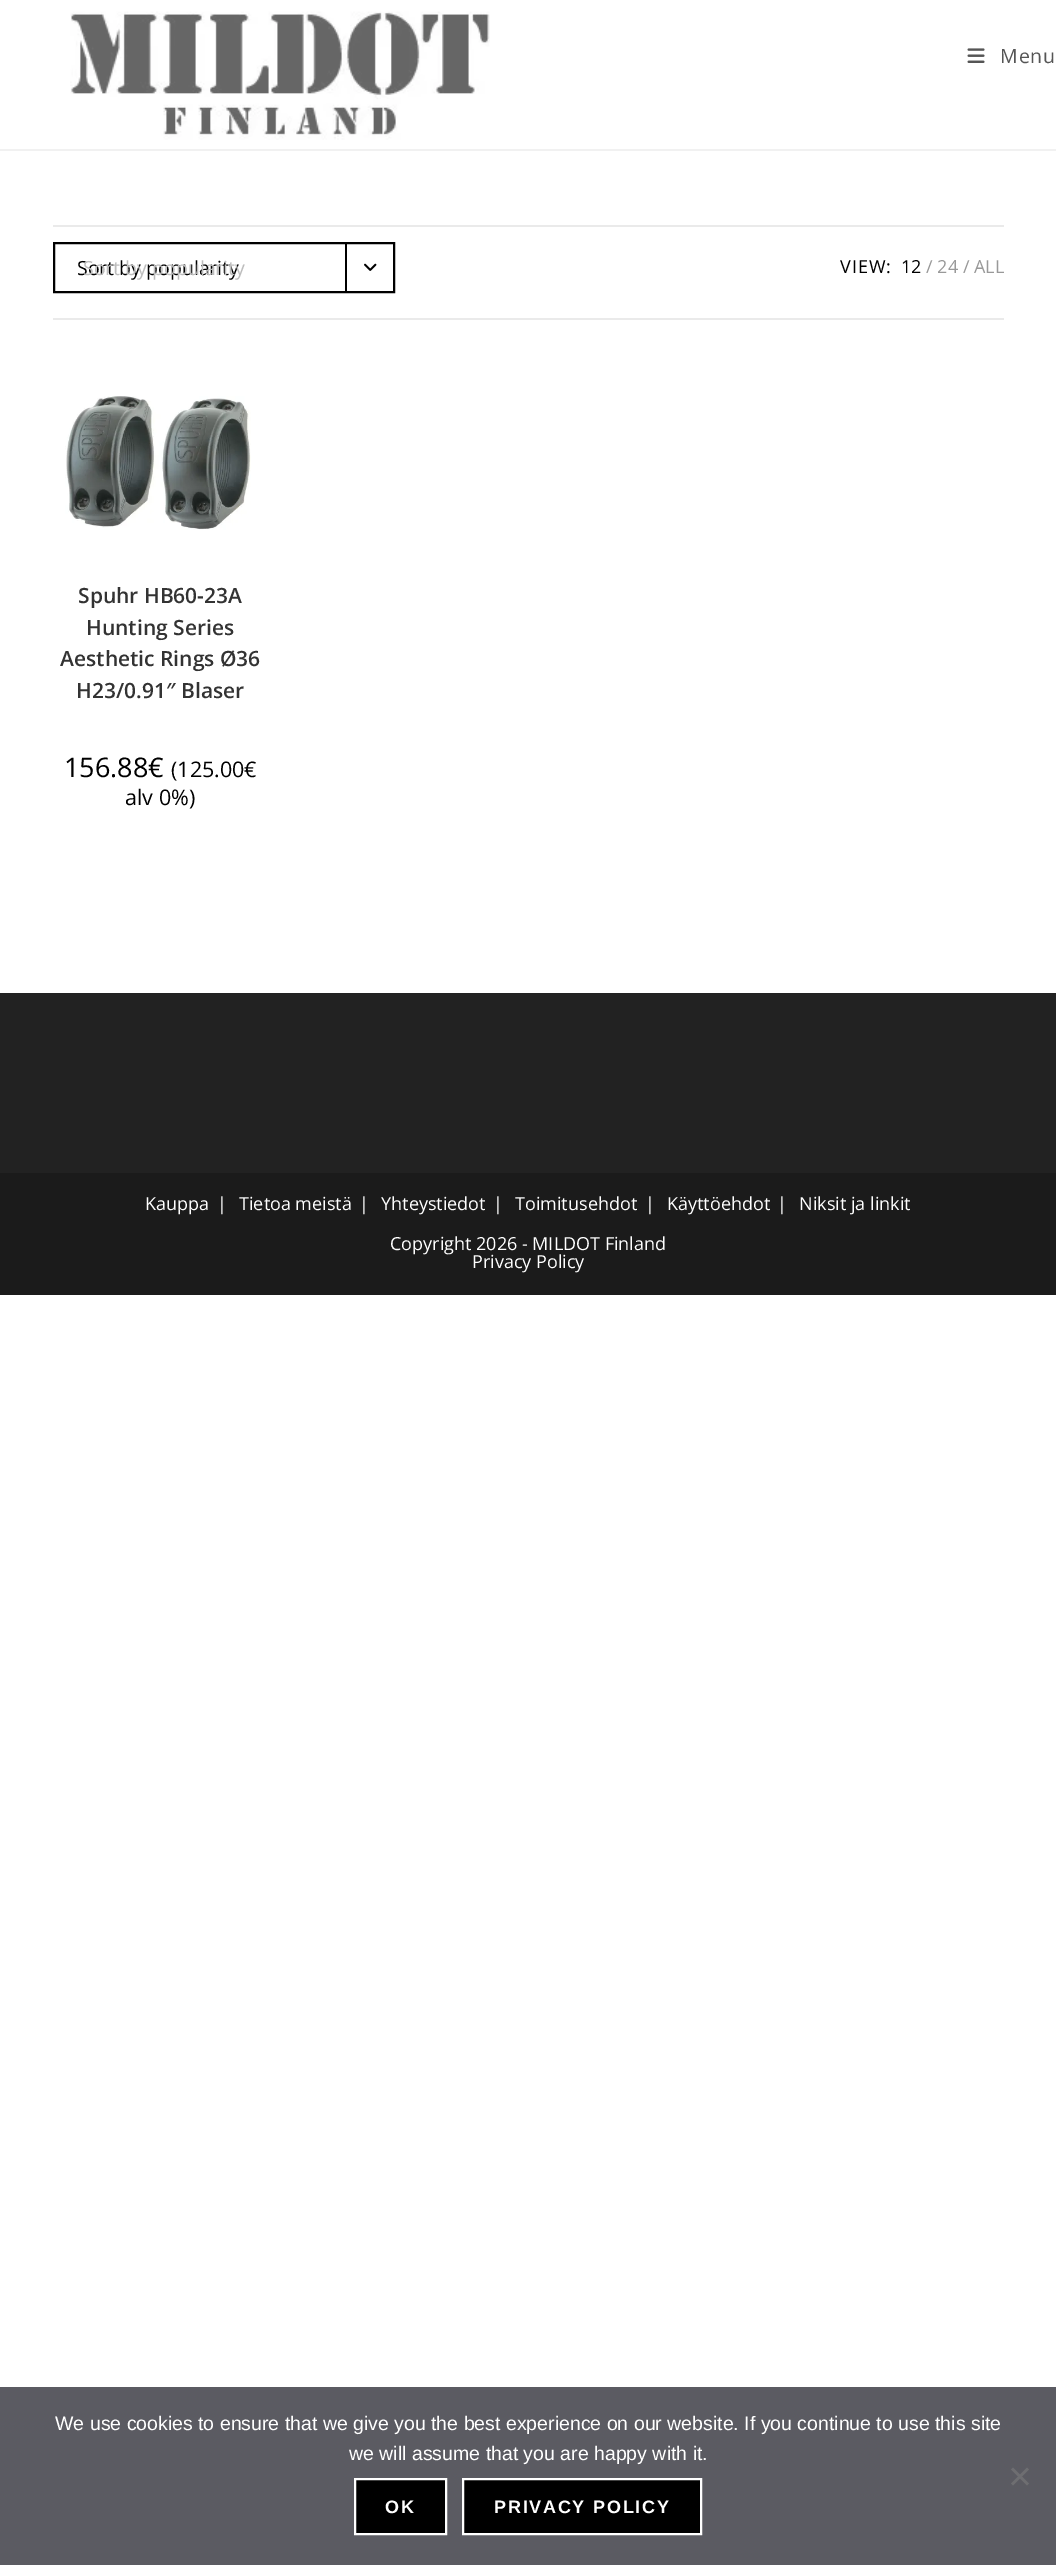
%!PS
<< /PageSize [1056 2565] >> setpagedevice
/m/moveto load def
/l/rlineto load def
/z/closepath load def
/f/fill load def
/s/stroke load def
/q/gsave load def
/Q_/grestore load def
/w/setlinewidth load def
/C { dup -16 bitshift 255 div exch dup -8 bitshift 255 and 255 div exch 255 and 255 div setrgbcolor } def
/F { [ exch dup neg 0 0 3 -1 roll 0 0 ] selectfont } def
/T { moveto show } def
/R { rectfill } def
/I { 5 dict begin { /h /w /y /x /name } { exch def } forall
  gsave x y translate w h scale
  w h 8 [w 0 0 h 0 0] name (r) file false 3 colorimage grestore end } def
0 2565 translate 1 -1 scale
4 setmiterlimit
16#FFFFFF C
0 0 1056 2565 R
16#F1F1F1 C
0 149 1056 2 R
(1.rgb) 70 11 420 129 I
(2.rgb) 967 48 18 15 I
/OpenSans-Regular 19.5 F
16#555555 C
1000 63 m 1 0 (Menu) ashow
16#EAEAEA C
53 225 951 2 R
53 318 951 2 R
16#000000 C
2 w
54 243 340 49 rectstroke
(Sort by popularity) 77 275 T
345 243 2 48 R
(3.rgb) 364 263 13 8 I
16#BDBDBD C
(Sort by popularity) 83 275 T
/OpenSans-Regular 18 F
16#000000 C
840 273 m 1 0 (VIEW:) ashow
(12) 901 273 T
16#999999 C
(/ 24 / ALL) 926 273 T
(4.rgb) 65 396 186 134 I
/OpenSans-SemiBold 21 F
16#333333 C
(Spuhr HB60-23A) 78 603 T
(Hunting Series) 86 635 T
(Aesthetic Rings Ø36) 60 666 T
(H23/0.91″ Blaser) 76 698 T
/OpenSans-Regular 27 F
16#000000 C
(156.88€) 64 777 T
/OpenSans-Regular 21.5 F
(\(125.00€) 171 777 T
(alv 0%\)) 125 805 T
16#222222 C
0 993 1056 180 R
16#1B1B1B C
0 1173 1056 122 R
/OpenSans-Regular 18 F
16#FFFFFF C
(Kauppa) 145 1210 T
(|) 217 1210 T
(Tietoa meistä) 239 1210 T
(|) 359 1210 T
(Yhteystiedot) 381 1210 T
(|) 493 1210 T
(Toimitusehdot) 515 1210 T
(|) 645 1210 T
(Käyttöehdot) 667 1210 T
(|) 777 1210 T
(Niksit ja linkit) 799 1210 T
(Copyright 2026 - MILDOT Finland) 390 1250 T
(Privacy Policy) 472 1268 T
16#5B5B62 C
0 2387 1056 178 R
/LiberationSans-Regular 19.5 F
16#FFFFFF C
(We use cookies to ensure that we give you the best experience on our website. If you continue to use this site) 55 2430 T
(we will assume that you are happy with it.) 349 2460 T
16#6E6E71 C
1027 2467.5 m 2 2 l -16 16 l -2 -2 l z f
1011 2469.5 m 2 -2 l 16 16 l -2 2 l z f
16#000000 C
355 2479 m 91 0 l 0 55 l -91 0 l z q f Q_
16#FFFFFF C
s
/LiberationSans-Bold 18 F
385 2513 m 1.75 0 (OK) ashow
16#000000 C
463 2479 m 238 0 l 0 55 l -238 0 l z q f Q_
16#FFFFFF C
s
494 2513 m 1.75 0 (PRIVACY POLICY) ashow
showpage
